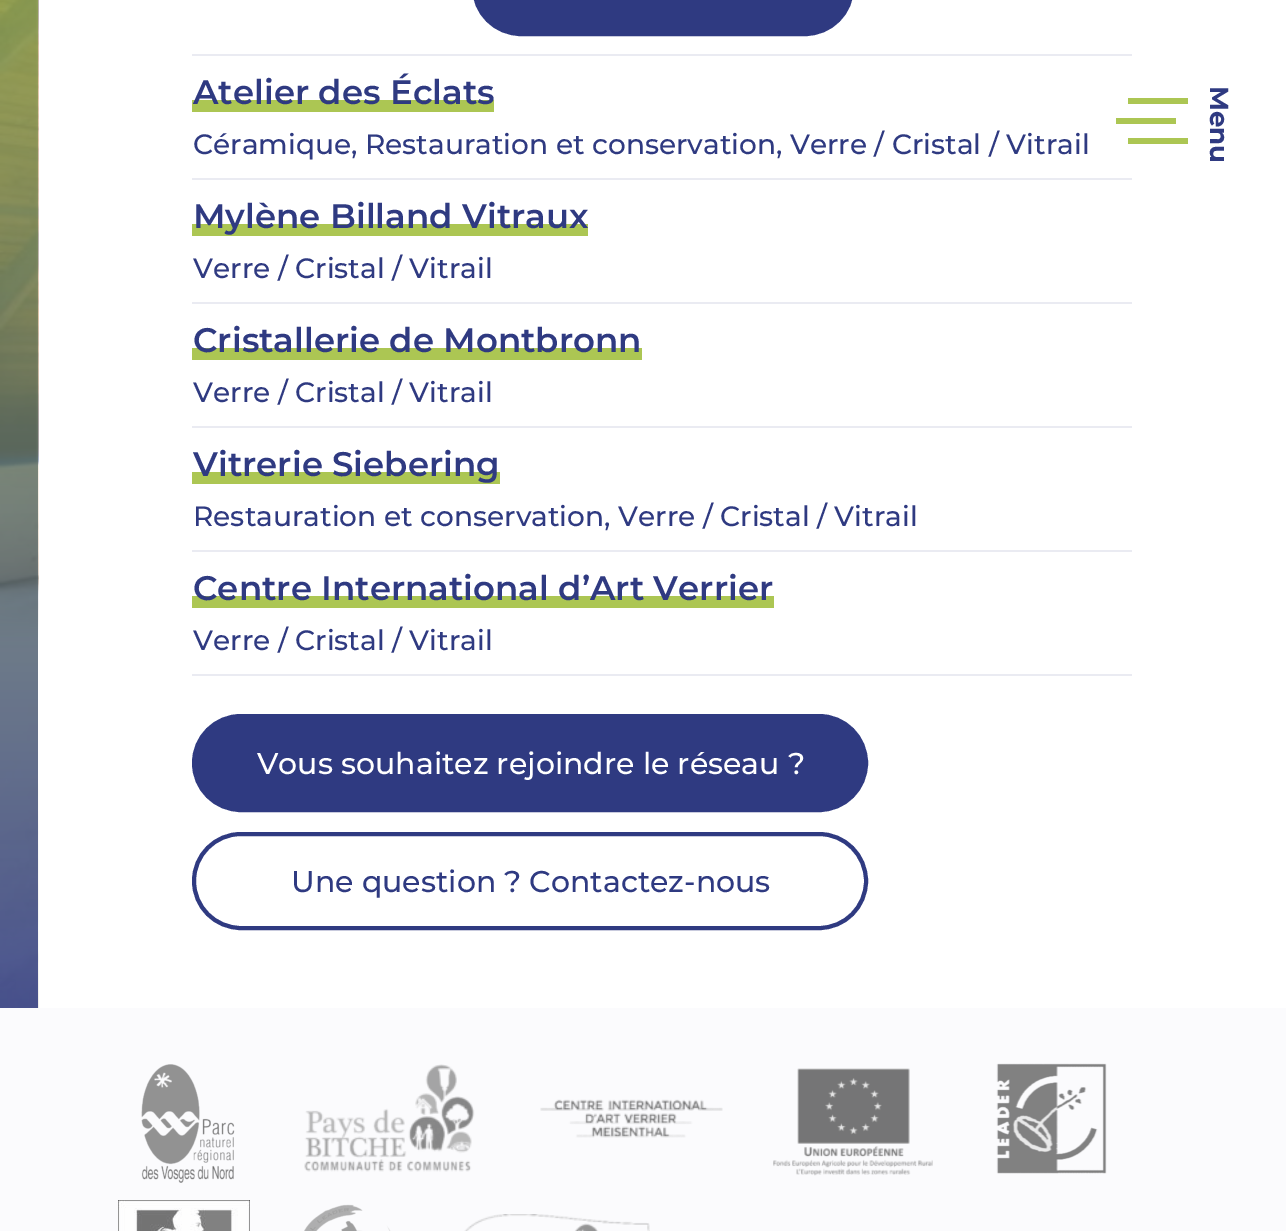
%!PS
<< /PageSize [1286 1231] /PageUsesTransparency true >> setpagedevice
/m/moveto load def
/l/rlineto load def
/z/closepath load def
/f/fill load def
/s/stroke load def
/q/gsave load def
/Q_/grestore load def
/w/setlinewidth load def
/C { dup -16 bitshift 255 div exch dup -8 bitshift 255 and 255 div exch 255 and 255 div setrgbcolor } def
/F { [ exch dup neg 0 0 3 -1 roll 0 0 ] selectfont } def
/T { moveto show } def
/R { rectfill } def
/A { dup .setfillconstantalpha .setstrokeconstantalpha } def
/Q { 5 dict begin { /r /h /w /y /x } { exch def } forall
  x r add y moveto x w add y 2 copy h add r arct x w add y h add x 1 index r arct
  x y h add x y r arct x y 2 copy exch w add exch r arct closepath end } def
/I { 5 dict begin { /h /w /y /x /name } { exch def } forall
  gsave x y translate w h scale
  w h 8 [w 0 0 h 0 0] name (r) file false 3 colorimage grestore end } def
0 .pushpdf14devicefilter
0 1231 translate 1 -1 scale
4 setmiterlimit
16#FFFFFF C
0 0 1286 1231 R
(1.rgb) 0 0 39 1008 I
0.85 A
q 0 0 m 38 0 l 0 1008 l -38 0 l z clip newpath
<< /ShadingType 2 /ColorSpace /DeviceRGB /Coords [19 -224 19 1008] /Extend [true true] /Function << /FunctionType 2 /Domain [0 1] /C0 [.675 .776 .325] /C1 [.184 .227 .506] /N 1 >> >> shfill Q_
1 A
16#2F3A81 C
474 -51 378 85 47 Q q f Q_
4 w
s
16#EAEBF2 C
192 54 940 2 R
192 178 940 2 R
q 192 100 m 302 0 l 0 12 l -302 0 l z clip newpath
<< /ShadingType 2 /ColorSpace /DeviceRGB /Coords [343 72 343 112] /Extend [true true] /Function << /FunctionType 3 /Domain [0 1] /Functions [<< /FunctionType 2 /Domain [0 1] /C0 [1 1 1] /C1 [1 1 1] /N 1 >> << /FunctionType 2 /Domain [0 1] /C0 [.675 .776 .325] /C1 [.675 .776 .325] /N 1 >>] /Bounds [.7] /Encode [0 1 0 1] >> >> shfill Q_
/Montserrat-SemiBold 34 F
16#2F3A81 C
(Atelier des Éclats) 193 104 T
/Montserrat-Medium 28 F
(Céramique, Restauration et conservation, Verre / Cristal / Vitrail) 193 154 T
16#EAEBF2 C
192 302 940 2 R
q 192 224 m 396 0 l 0 12 l -396 0 l z clip newpath
<< /ShadingType 2 /ColorSpace /DeviceRGB /Coords [390 196 390 236] /Extend [true true] /Function << /FunctionType 3 /Domain [0 1] /Functions [<< /FunctionType 2 /Domain [0 1] /C0 [1 1 1] /C1 [1 1 1] /N 1 >> << /FunctionType 2 /Domain [0 1] /C0 [.675 .776 .325] /C1 [.675 .776 .325] /N 1 >>] /Bounds [.7] /Encode [0 1 0 1] >> >> shfill Q_
/Montserrat-SemiBold 34 F
16#2F3A81 C
(Mylène Billand Vitraux) 193 228 T
/Montserrat-Medium 28 F
(Verre / Cristal / Vitrail) 193 278 T
16#EAEBF2 C
192 426 940 2 R
q 192 348 m 450 0 l 0 12 l -450 0 l z clip newpath
<< /ShadingType 2 /ColorSpace /DeviceRGB /Coords [417 320 417 360] /Extend [true true] /Function << /FunctionType 3 /Domain [0 1] /Functions [<< /FunctionType 2 /Domain [0 1] /C0 [1 1 1] /C1 [1 1 1] /N 1 >> << /FunctionType 2 /Domain [0 1] /C0 [.675 .776 .325] /C1 [.675 .776 .325] /N 1 >>] /Bounds [.7] /Encode [0 1 0 1] >> >> shfill Q_
/Montserrat-SemiBold 34 F
16#2F3A81 C
(Cristallerie de Montbronn) 193 352 T
/Montserrat-Medium 28 F
(Verre / Cristal / Vitrail) 193 402 T
16#EAEBF2 C
192 550 940 2 R
q 192 472 m 308 0 l 0 12 l -308 0 l z clip newpath
<< /ShadingType 2 /ColorSpace /DeviceRGB /Coords [346 444 346 484] /Extend [true true] /Function << /FunctionType 3 /Domain [0 1] /Functions [<< /FunctionType 2 /Domain [0 1] /C0 [1 1 1] /C1 [1 1 1] /N 1 >> << /FunctionType 2 /Domain [0 1] /C0 [.675 .776 .325] /C1 [.675 .776 .325] /N 1 >>] /Bounds [.7] /Encode [0 1 0 1] >> >> shfill Q_
/Montserrat-SemiBold 34 F
16#2F3A81 C
(Vitrerie Siebering) 193 476 T
/Montserrat-Medium 28 F
(Restauration et conservation, Verre / Cristal / Vitrail) 193 526 T
16#EAEBF2 C
192 674 940 2 R
q 192 596 m 582 0 l 0 12 l -582 0 l z clip newpath
<< /ShadingType 2 /ColorSpace /DeviceRGB /Coords [483 568 483 608] /Extend [true true] /Function << /FunctionType 3 /Domain [0 1] /Functions [<< /FunctionType 2 /Domain [0 1] /C0 [1 1 1] /C1 [1 1 1] /N 1 >> << /FunctionType 2 /Domain [0 1] /C0 [.675 .776 .325] /C1 [.675 .776 .325] /N 1 >>] /Bounds [.7] /Encode [0 1 0 1] >> >> shfill Q_
/Montserrat-SemiBold 34 F
16#2F3A81 C
(Centre International d’Art Verrier) 193 600 T
/Montserrat-Medium 28 F
(Verre / Cristal / Vitrail) 193 650 T
194 716 672 94 47 Q q f Q_
s
/Montserrat-Medium 30 F
16#FFFFFF C
(Vous souhaitez rejoindre le réseau ?) 257 774 T
16#2F3A81 C
194 834 672 94 47 Q s
(Une question ? Contactez-nous) 291 892 T
16#ACC653 C
1116 118 60 6 R
1128 98 60 6 R
1128 138 60 6 R
/Montserrat-Bold 26 F
16#2F3A81 C
q 1210 86 translate 90 rotate 0 0 m (Menu) show Q_
16#FBFBFD C
0 1008 1286 223 R
(2.rgb) 141 1064 94 119 I
(3.rgb) 304 1064 171 108 I
(4.rgb) 540 1099 183 39 I
(5.rgb) 773 1068 160 108 I
(6.rgb) 996 1063 111 111 I
(7.rgb) 118 1200 132 31 I
(8.rgb) 304 1204 87 27 I
(9.rgb) 464 1214 186 17 I
.poppdf14devicefilter showpage
